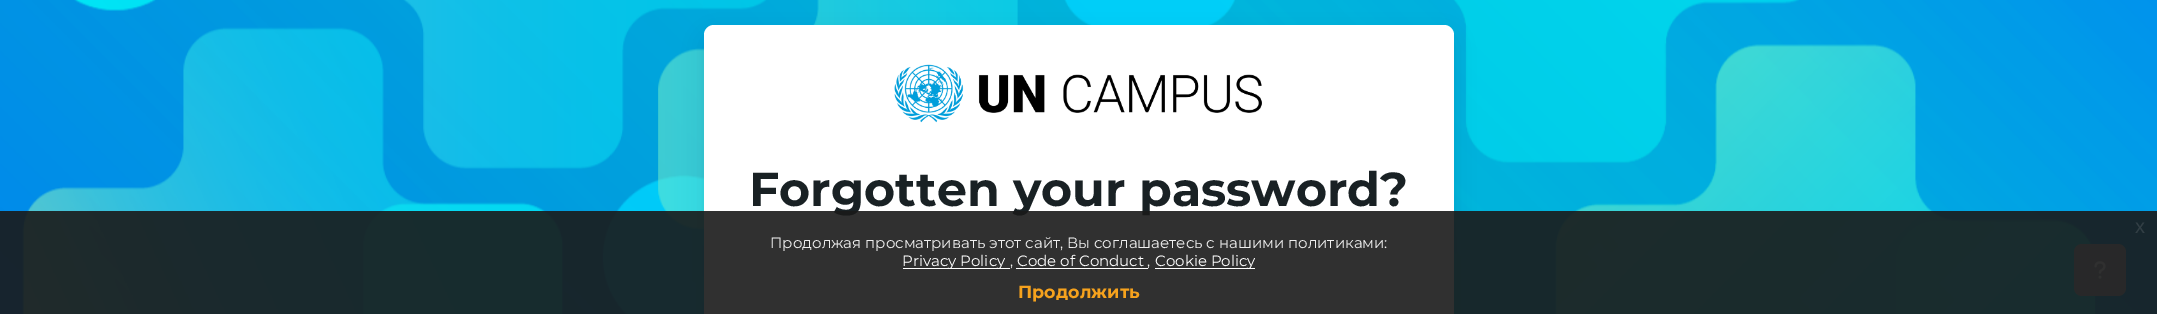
%!PS
<< /PageSize [2157 314] /PageUsesTransparency true >> setpagedevice
/f/fill load def
/C { dup -16 bitshift 255 div exch dup -8 bitshift 255 and 255 div exch 255 and 255 div setrgbcolor } def
/F { [ exch dup neg 0 0 3 -1 roll 0 0 ] selectfont } def
/T { moveto show } def
/R { rectfill } def
/A { dup .setfillconstantalpha .setstrokeconstantalpha } def
/Q { 5 dict begin { /r /h /w /y /x } { exch def } forall
  x r add y moveto x w add y 2 copy h add r arct x w add y h add x 1 index r arct
  x y h add x y r arct x y 2 copy exch w add exch r arct closepath end } def
/S { 12 dict begin { /a /b /q /h /w /y /x } { exch def } forall gsave /was 0 def
  9 -2 -9 { dup b mul 4 div /e exch def 1 sub .425 mul 2.718 exch exp 1 add a .99 .min exch div /now exch def
    1 1 now sub 1 was sub div sub A /was now def
    w h .min e 2 mul add 0 gt { x e sub y e sub w e 2 mul add h e 2 mul add
      q e add b .6 mul add w h .min 2 div e add .min 0 .max Q fill } if } for grestore end } def
/I { 5 dict begin { /h /w /y /x /name } { exch def } forall
  gsave x y translate w h scale
  w h 8 [w 0 0 h 0 0] name (r) file false 3 colorimage grestore end } def
0 .pushpdf14devicefilter
0 314 translate 1 -1 scale
4 setmiterlimit
16#FFFFFF C
0 0 2157 314 R
(1.rgb) 0 0 2157 314 I
16#192124 C
704 35 750 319 10 10 .1 S
16#FFFFFF C
704 25 750 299 10 Q f
(2.rgb) 894 64 368 59 I
/Montserrat-Bold 47.5 F
16#192124 C
(Forgotten your password?) 749 206 T
16#ADB5BD C
2074 244 52 52 8 Q f
(3.rgb) 2094 261 12 18 I
0.9 A
16#191919 C
0 211 2157 103 R
/LiberationSans-Regular 20 F
1 A
16#323F45 C
(x) 2135 233 T
/Montserrat-Regular 15 F
16#EFEFEF C
(Продолжая просматривать этот сайт, Вы соглашаетесь с нашими политиками:) 770 248 T
16#FFFFFF C
903 268 107 1 R
(Privacy Policy) 902 266 T
16#EFEFEF C
(,) 1010 266 T
16#FFFFFF C
1016 268 132 1 R
(Code of Conduct) 1017 266 T
16#EFEFEF C
(,) 1147 266 T
16#FFFFFF C
1155 268 100 1 R
(Cookie Policy) 1155 266 T
/Montserrat-Bold 17.5 F
16#F6A21D C
(Продолжить) 1018 298 T
.poppdf14devicefilter showpage
